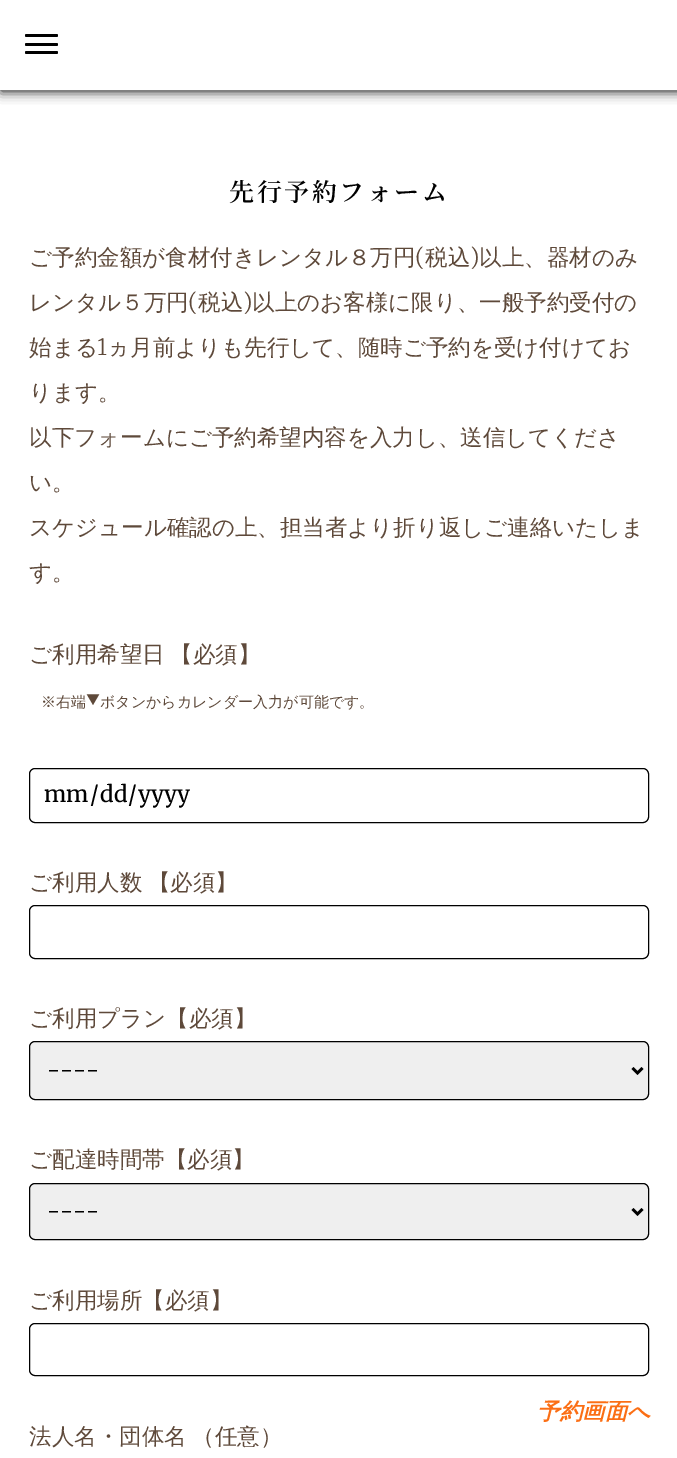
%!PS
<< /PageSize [677 1458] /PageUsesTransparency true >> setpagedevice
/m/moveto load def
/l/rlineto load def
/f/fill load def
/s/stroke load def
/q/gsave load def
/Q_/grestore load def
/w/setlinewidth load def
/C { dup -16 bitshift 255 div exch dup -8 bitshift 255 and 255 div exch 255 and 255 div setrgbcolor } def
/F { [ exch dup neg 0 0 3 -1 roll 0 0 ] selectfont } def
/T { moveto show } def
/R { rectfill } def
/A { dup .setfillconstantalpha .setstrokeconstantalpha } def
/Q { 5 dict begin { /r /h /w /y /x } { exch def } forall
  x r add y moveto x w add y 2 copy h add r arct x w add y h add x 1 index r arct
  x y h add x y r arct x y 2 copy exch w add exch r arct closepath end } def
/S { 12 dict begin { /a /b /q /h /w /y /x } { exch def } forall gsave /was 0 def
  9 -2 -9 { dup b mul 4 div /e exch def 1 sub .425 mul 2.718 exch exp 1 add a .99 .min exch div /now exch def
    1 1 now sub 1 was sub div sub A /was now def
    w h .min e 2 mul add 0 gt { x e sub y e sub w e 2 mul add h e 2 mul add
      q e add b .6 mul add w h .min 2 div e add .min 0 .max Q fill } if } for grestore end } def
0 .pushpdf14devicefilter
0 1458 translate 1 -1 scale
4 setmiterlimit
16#FFFFFF C
0 0 677 1458 R
16#000000 C
1 1 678 90 0 6 1 S
16#FFFFFF C
0 0 677 90 R
16#000000 C
25 43 33 3 1.5 Q f
25 34 33 3 1.5 Q f
25 51 33 3 1.5 Q f
/NotoSerifJP-SemiBold 25 F
229 201 m 2.5 0 (先行予約フォーム) ashow
/WenQuanYiZenHei-Medium 22.5 F
16#5E493A C
(ご予約金額が食材付きレンタル８万円) 29 265 T
/Merriweather-Light 22.5 F
(\() 415 265 T
/WenQuanYiZenHei-Medium 22.5 F
(税込) 425 265 T
/Merriweather-Light 22.5 F
(\)) 470 265 T
/WenQuanYiZenHei-Medium 22.5 F
(以上、器材のみ) 479 265 T
(レンタル５万円) 29 310 T
/Merriweather-Light 22.5 F
(\() 188 310 T
/WenQuanYiZenHei-Medium 22.5 F
(税込) 198 310 T
/Merriweather-Light 22.5 F
(\)) 243 310 T
/WenQuanYiZenHei-Medium 22.5 F
(以上のお客様に限り、一般予約受付の) 252 310 T
(始まる) 29 355 T
/Merriweather-Light 22.5 F
(1) 97 355 T
/WenQuanYiZenHei-Medium 22.5 F
(ヵ月前よりも先行して、随時ご予約を受け付けてお) 107 355 T
(ります。) 29 400 T
(以下フォームにご予約希望内容を入力し、送信してくださ) 29 445 T
(い。) 29 490 T
(スケジュール確認の上、担当者より折り返しご連絡いたしま) 29 535 T
(す。) 29 580 T
29 662 m -1 0 32 (ご利用希望日 【必須】) widthshow
/WenQuanYiZenHei-Medium 15 F
(※右端) 41 707 T
/Merriweather-Regular 15 F
(▼) 86 707 T
/WenQuanYiZenHei-Medium 15 F
(ボタンからカレンダー入力が可能です。) 100 707 T
16#000000 C
29.5 768.5 619 54 5.5 Q s
/Merriweather-Regular 22.5 F
(mm) 44 802 T
(/) 90 802 T
(dd) 100 802 T
(/) 128 802 T
(yyyy) 138 802 T
/WenQuanYiZenHei-Medium 22.5 F
16#5E493A C
29 890 m -1 0 32 (ご利用人数 【必須】) widthshow
16#000000 C
29.5 905.5 619 53 5.5 Q s
16#5E493A C
(ご利用プラン【必須】) 29 1026 T
16#EFEFEF C
29.5 1041.5 619 58 5.5 Q q f Q_
16#000000 C
s
2.5 w
632.5 1068 m 5 5 l 5 -5 l s
/Merriweather-Regular 22.5 F
(----) 47 1078 T
/WenQuanYiZenHei-Medium 22.5 F
16#5E493A C
(ご配達時間帯【必須】) 29 1167 T
16#EFEFEF C
29.5 1183.5 619 56 5.5 Q q f Q_
16#000000 C
1 w
s
2.5 w
632.5 1209 m 5 5 l 5 -5 l s
/Merriweather-Regular 22.5 F
(----) 47 1219 T
/WenQuanYiZenHei-Medium 22.5 F
16#5E493A C
(ご利用場所【必須】) 29 1308 T
16#000000 C
1 w
29.5 1323.5 619 52 5.5 Q s
16#5E493A C
29 1444 m -1 0 32 (法人名・団体名 （任意）) widthshow
/WenQuanYiZenHei-BoldItalic 22.5 F
16#FB6E14 C
(予約画面へ) 537 1419 T
.poppdf14devicefilter showpage
